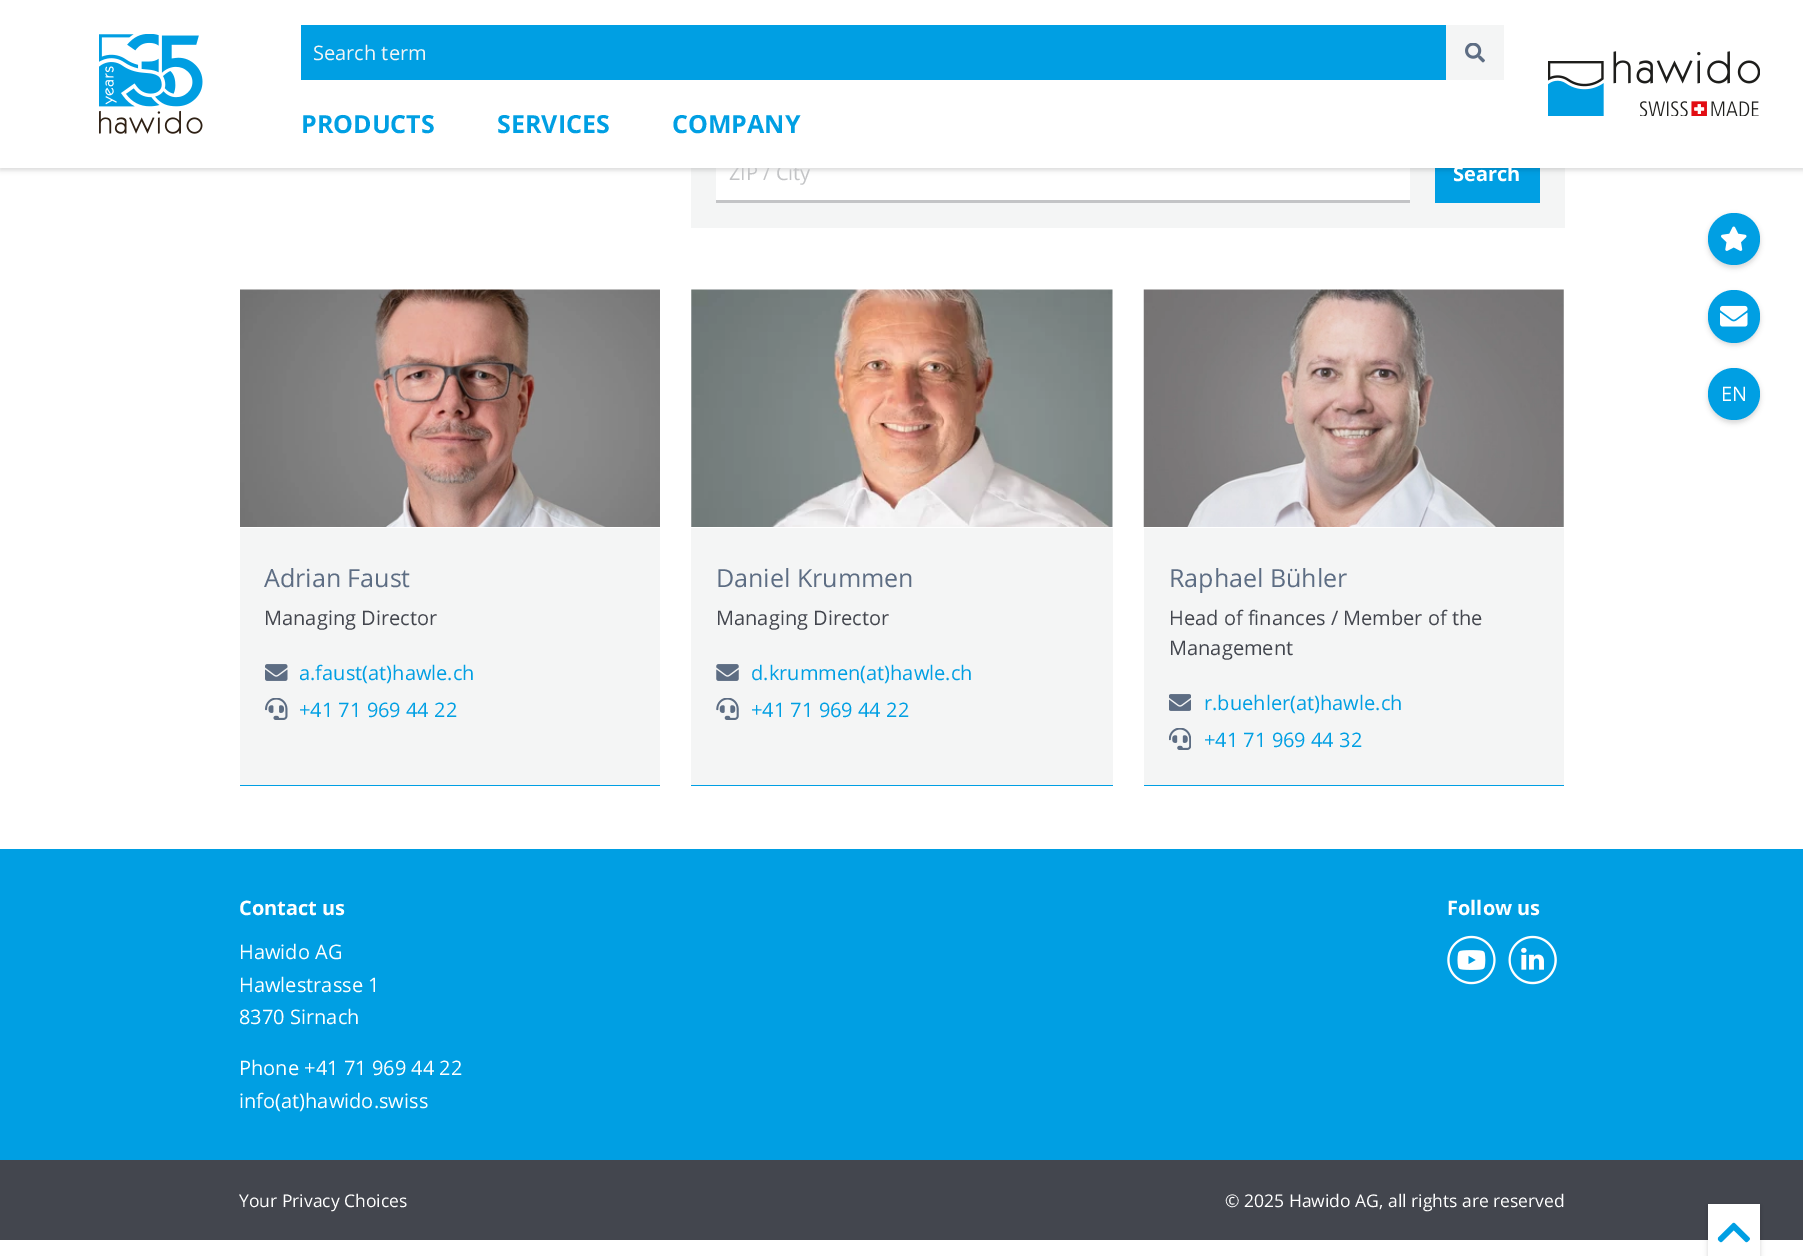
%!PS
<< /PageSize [1803 1256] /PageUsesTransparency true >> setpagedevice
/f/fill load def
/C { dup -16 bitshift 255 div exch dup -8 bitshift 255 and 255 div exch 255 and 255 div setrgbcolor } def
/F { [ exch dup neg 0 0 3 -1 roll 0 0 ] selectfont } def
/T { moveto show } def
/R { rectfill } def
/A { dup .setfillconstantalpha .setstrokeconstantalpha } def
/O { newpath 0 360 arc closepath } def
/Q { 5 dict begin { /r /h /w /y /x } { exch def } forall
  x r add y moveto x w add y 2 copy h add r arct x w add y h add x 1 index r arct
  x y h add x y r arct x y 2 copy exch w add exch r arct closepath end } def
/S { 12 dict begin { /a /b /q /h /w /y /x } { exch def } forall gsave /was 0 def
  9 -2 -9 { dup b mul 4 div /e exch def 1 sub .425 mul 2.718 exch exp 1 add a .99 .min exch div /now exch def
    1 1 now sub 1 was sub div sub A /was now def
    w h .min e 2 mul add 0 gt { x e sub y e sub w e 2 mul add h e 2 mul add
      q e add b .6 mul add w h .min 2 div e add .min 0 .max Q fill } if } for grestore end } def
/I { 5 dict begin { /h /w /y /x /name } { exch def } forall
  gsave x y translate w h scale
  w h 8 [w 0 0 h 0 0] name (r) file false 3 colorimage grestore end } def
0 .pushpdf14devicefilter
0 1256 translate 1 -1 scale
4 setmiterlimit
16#FFFFFF C
0 0 1803 1256 R
16#F4F5F5 C
691 168 874 60 R
16#FFFFFF C
716 168 694 32 R
16#009FE3 C
1435 168 105 35 R
16#000000 C
0 3 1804 167 0 2.5 .15 S
/OpenSans-Regular 20 F
16#C3C4C6 C
(ZIP / City) 729 180 T
16#FFFFFF C
0 0 1803 168 R
(1.rgb) 99 34 104 100 I
16#009FE3 C
301 25 1145 55 R
16#F4F5F5 C
(Search term) 313 60 T
1446 25 58 55 R
(2.rgb) 1465 43 20 20 I
/OpenSans-Bold 25 F
16#009FE3 C
(PRODUCTS) 301 133 T
(SERVICES) 497 133 T
(COMPANY) 672 133 T
(3.rgb) 1548 51 212 65 I
16#C3C4C6 C
716 200 694 3 R
/OpenSans-Bold 20 F
16#FFFFFF C
(Search) 1453 181 T
(4.rgb) 240 289 420 238 I
16#F4F5F5 C
240 528 420 257 R
16#009FE3 C
240 785 420 1 R
/OpenSans-Regular 25 F
16#5D6D83 C
(Adrian Faust) 264 587 T
/OpenSans-Regular 20 F
16#43464E C
(Managing Director) 264 625 T
(5.rgb) 265 664 23 17 I
16#009FE3 C
(a.faust\(at\)hawle.ch) 299 680 T
(6.rgb) 265 698 23 22 I
(+41 71 969 44 22) 299 717 T
(7.rgb) 691 289 422 238 I
16#F4F5F5 C
691 528 422 257 R
16#009FE3 C
691 785 422 1 R
/OpenSans-Regular 25 F
16#5D6D83 C
(Daniel Krummen) 716 587 T
/OpenSans-Regular 20 F
16#43464E C
(Managing Director) 716 625 T
(8.rgb) 716 664 23 17 I
16#009FE3 C
(d.krummen\(at\)hawle.ch) 751 680 T
(9.rgb) 716 698 23 22 I
(+41 71 969 44 22) 751 717 T
(10.rgb) 1143 289 421 238 I
16#F4F5F5 C
1144 528 420 257 R
16#009FE3 C
1144 785 420 1 R
/OpenSans-Regular 25 F
16#5D6D83 C
(Raphael Bühler) 1169 587 T
/OpenSans-Regular 20 F
16#43464E C
(Head of finances / Member of the) 1169 625 T
(Management) 1169 655 T
(11.rgb) 1169 694 22 17 I
16#009FE3 C
(r.buehler\(at\)hawle.ch) 1204 710 T
(12.rgb) 1169 728 22 22 I
(+41 71 969 44 32) 1204 747 T
0 849 1803 311 R
/OpenSans-Bold 20 F
16#FFFFFF C
(Contact us) 239 915 T
/OpenSans-Regular 20 F
(Hawido AG) 239 959 T
(Hawlestrasse 1) 239 992 T
(8370 Sirnach) 239 1024 T
(Phone +41 71 969 44 22) 239 1075 T
(info\(at\)hawido.swiss) 239 1108 T
/OpenSans-Bold 20 F
(Follow us) 1447 915 T
(13.rgb) 1447 935 49 50 I
(14.rgb) 1508 935 49 50 I
16#43464E C
0 1160 1803 80 R
/OpenSans-Regular 17.5 F
16#FFFFFF C
(Your Privacy Choices) 239 1207 T
(© 2025 Hawido AG, all rights are reserved) 1225 1207 T
16#000000 C
1708 1206 52 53 0 2.5 .15 S
16#FFFFFF C
1708 1204 52 52 R
(15.rgb) 1717 1222 33 21 I
16#000000 C
1708 215 52 53 26 2.5 .15 S
16#009FE3 C
1734 239 26 O f
(16.rgb) 1721 226 26 25 I
16#000000 C
1708 293 52 52 26 2.5 .15 S
16#009FE3 C
1708 290 52 53 26 Q f
(17.rgb) 1720 305 28 22 I
16#000000 C
1708 370 52 53 26 2.5 .15 S
16#009FE3 C
1734 394 26 O f
/OpenSans-Regular 20 F
16#FFFFFF C
(EN) 1721 401 T
.poppdf14devicefilter showpage
